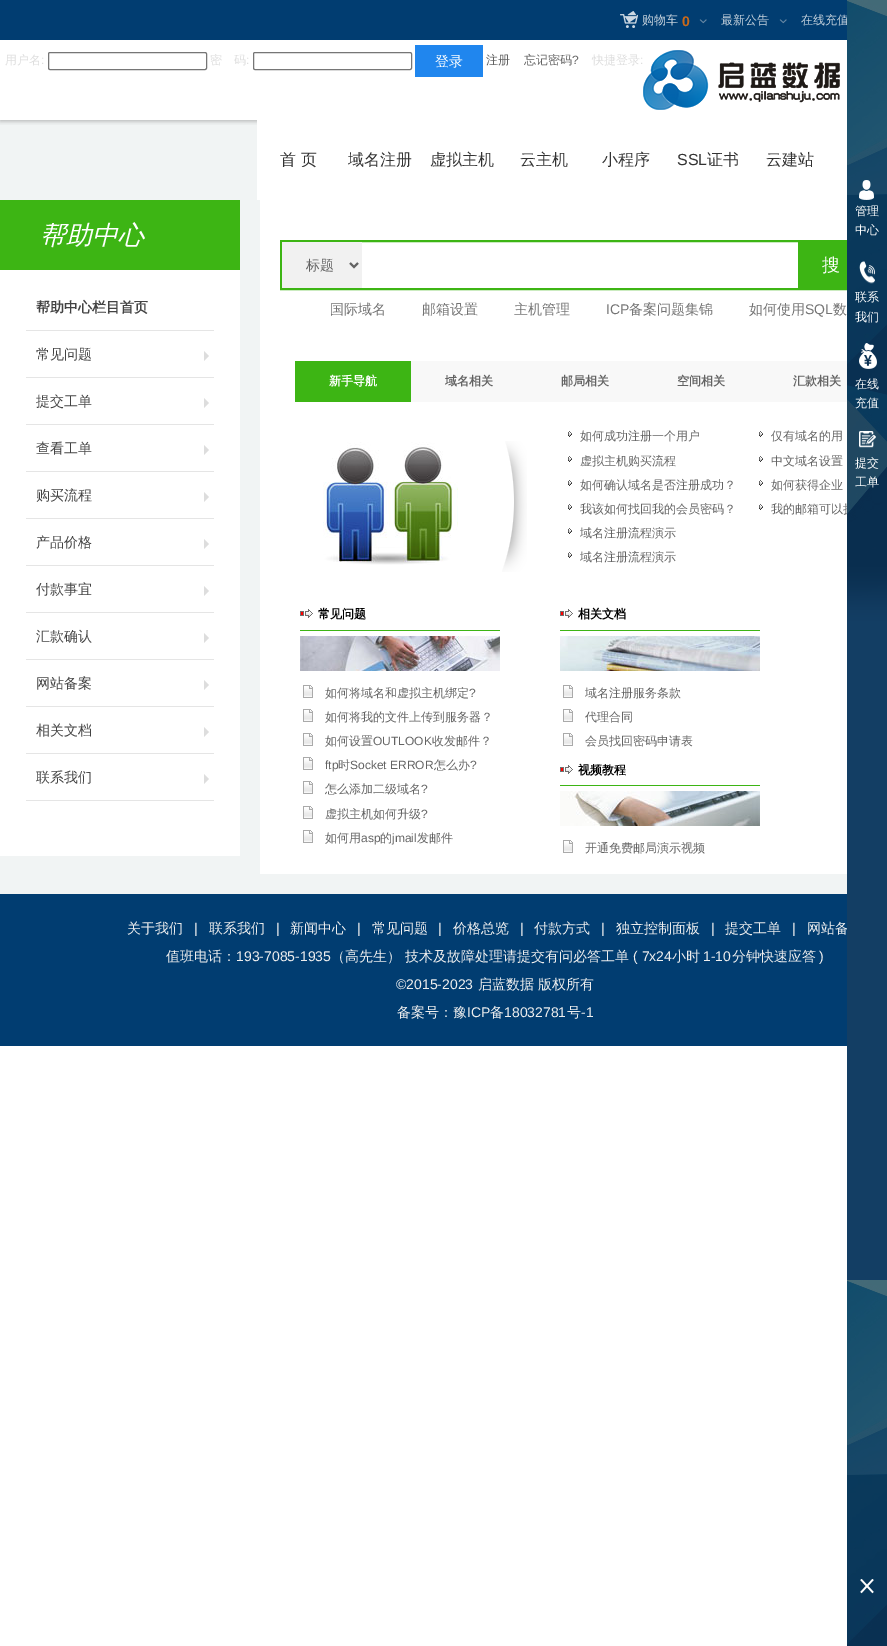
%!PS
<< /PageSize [887 1646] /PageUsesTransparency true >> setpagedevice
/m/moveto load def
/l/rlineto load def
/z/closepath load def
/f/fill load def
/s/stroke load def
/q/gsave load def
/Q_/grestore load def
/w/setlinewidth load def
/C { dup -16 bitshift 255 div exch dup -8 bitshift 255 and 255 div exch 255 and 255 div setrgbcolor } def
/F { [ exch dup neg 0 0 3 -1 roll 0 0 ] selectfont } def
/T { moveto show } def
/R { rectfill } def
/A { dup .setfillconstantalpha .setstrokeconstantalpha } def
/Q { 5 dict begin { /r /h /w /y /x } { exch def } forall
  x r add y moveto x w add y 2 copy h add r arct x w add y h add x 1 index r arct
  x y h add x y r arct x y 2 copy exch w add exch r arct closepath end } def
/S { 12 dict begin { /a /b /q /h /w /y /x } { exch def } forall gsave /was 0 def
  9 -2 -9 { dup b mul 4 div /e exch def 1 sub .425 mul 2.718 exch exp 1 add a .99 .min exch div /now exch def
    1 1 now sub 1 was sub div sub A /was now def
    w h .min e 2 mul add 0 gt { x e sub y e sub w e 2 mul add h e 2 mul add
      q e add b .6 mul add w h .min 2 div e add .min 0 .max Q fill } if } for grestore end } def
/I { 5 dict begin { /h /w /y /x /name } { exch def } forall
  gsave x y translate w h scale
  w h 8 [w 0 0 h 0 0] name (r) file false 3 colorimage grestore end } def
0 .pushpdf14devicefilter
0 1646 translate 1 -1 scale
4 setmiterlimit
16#FFFFFF C
0 0 887 1646 R
16#F1F4F4 C
0 120 847 774 R
q
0 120 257 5 rectclip
16#464646 C
0 1 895 120 0 2.5 .39 S
Q_
16#013D71 C
0 0 847 40 R
(1.rgb) 620 11 18 17 I
/WenQuanYiZenHei-Medium 12 F
16#C7D3DD C
(购物车) 642 24 T
/LiberationSans-Bold 14 F
16#CB6918 C
(0) 682 26 T
(2.rgb) 699 19 8 5 I
/WenQuanYiZenHei-Medium 12 F
16#C7D3DD C
(最新公告) 721 24 T
(2.rgb) 779 19 8 5 I
(在线充值) 801 24 T
16#DEDEDE C
(用户名) 5 64 T
/LiberationSans-Regular 12 F
(:) 41 64 T
16#767676 C
48.5 52.5 158 17 1.5 Q s
/WenQuanYiZenHei-Medium 12 F
16#DEDEDE C
(密　码) 210 64 T
/LiberationSans-Regular 12 F
(:) 246 64 T
16#767676 C
253.5 52.5 158 17 1.5 Q s
16#2086EE C
415 45 68 32 R
/WenQuanYiZenHei-Medium 14 F
16#FFFFFF C
(登录) 435 66 T
/WenQuanYiZenHei-Medium 12 F
16#636363 C
(注册) 486 64 T
(忘记密码) 524 64 T
/LiberationSans-Regular 12 F
(?) 572 64 T
/WenQuanYiZenHei-Medium 12 F
16#DEDEDE C
(快捷登录) 592 64 T
/LiberationSans-Regular 12 F
(:) 640 64 T
(3.rgb) 643 50 197 60 I
16#FFFFFF C
257 120 590 80 R
/WenQuanYiZenHei-Medium 16 F
16#333333 C
(首 页) 280 165 T
(域名注册) 348 165 T
(虚拟主机) 430 165 T
(云主机) 520 165 T
(小程序) 602 165 T
/LiberationSans-Regular 16 F
(SSL) 677 165 T
/WenQuanYiZenHei-Medium 16 F
(证书) 707 165 T
(云建站) 766 165 T
16#3DB514 C
0 200 240 70 R
/WenQuanYiZenHei-MediumItalic 26 F
16#FFFFFF C
(帮助中心) 40 244 T
0 270 240 586 R
16#E5E5E5 C
26 330 188 1 R
/WenQuanYiZenHei-Bold 14 F
16#434343 C
(帮助中心栏目首页) 36 312 T
16#E5E5E5 C
26 377 188 1 R
/WenQuanYiZenHei-Medium 14 F
16#434343 C
(常见问题) 36 359 T
16#DDDDDD C
204 361 m 0 -10 l 5 5 l z f
16#E5E5E5 C
26 424 188 1 R
16#434343 C
(提交工单) 36 406 T
16#DDDDDD C
204 408 m 0 -10 l 5 5 l z f
16#E5E5E5 C
26 471 188 1 R
16#434343 C
(查看工单) 36 453 T
16#DDDDDD C
204 455 m 0 -10 l 5 5 l z f
16#E5E5E5 C
26 518 188 1 R
16#434343 C
(购买流程) 36 500 T
16#DDDDDD C
204 502 m 0 -10 l 5 5 l z f
16#E5E5E5 C
26 565 188 1 R
16#434343 C
(产品价格) 36 547 T
16#DDDDDD C
204 549 m 0 -10 l 5 5 l z f
16#E5E5E5 C
26 612 188 1 R
16#434343 C
(付款事宜) 36 594 T
16#DDDDDD C
204 596 m 0 -10 l 5 5 l z f
16#E5E5E5 C
26 659 188 1 R
16#434343 C
(汇款确认) 36 641 T
16#DDDDDD C
204 643 m 0 -10 l 5 5 l z f
16#E5E5E5 C
26 706 188 1 R
16#434343 C
(网站备案) 36 688 T
16#DDDDDD C
204 690 m 0 -10 l 5 5 l z f
16#E5E5E5 C
26 753 188 1 R
16#434343 C
(相关文档) 36 735 T
16#DDDDDD C
204 737 m 0 -10 l 5 5 l z f
16#E5E5E5 C
26 800 188 1 R
16#434343 C
(联系我们) 36 782 T
16#DDDDDD C
204 784 m 0 -10 l 5 5 l z f
16#FFFFFF C
260 200 587 674 R
16#3DB514 C
2 w
281 241 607 48 rectstroke
16#F1F1F1 C
282 242 80 46 R
16#636363 C
350 263 m 4 4 l 4 -4 l s
(标题) 306 270 T
16#3DB514 C
798 242 49 46 R
/WenQuanYiZenHei-Medium 18 F
16#FFFFFF C
(搜) 822 271 T
/WenQuanYiZenHei-Medium 14 F
16#747474 C
(国际域名) 330 314 T
(邮箱设置) 422 314 T
(主机管理) 514 314 T
/LiberationSans-Regular 14 F
(ICP) 606 314 T
/WenQuanYiZenHei-Medium 14 F
(备案问题集锦) 629 314 T
(如何使用) 749 314 T
/LiberationSans-Regular 14 F
(SQL) 805 314 T
/WenQuanYiZenHei-Medium 14 F
(数) 833 314 T
16#3DB514 C
295 361 116 41 R
/WenQuanYiZenHei-Bold 12 F
16#FFFFFF C
(新手导航) 329 385 T
16#F8F8F8 C
411 361 436 41 R
16#636363 C
(域名相关) 445 385 T
(邮局相关) 561 385 T
(空间相关) 677 385 T
(汇款相关) 793 385 T
(4.rgb) 323 442 135 123 I
(5.rgb) 502 441 25 131 I
(6.rgb) 568 431 4 6 I
/WenQuanYiZenHei-Medium 12 F
(如何成功注册一个用户) 580 440 T
(6.rgb) 568 456 4 6 I
(虚拟主机购买流程) 580 465 T
(6.rgb) 568 480 4 6 I
(如何确认域名是否注册成功？) 580 489 T
(6.rgb) 568 504 4 6 I
(我该如何找回我的会员密码？) 580 513 T
(6.rgb) 568 528 4 6 I
(域名注册流程演示) 580 537 T
(6.rgb) 568 552 4 6 I
(域名注册流程演示) 580 561 T
(6.rgb) 759 431 4 6 I
(仅有域名的用) 771 440 T
(6.rgb) 759 456 4 6 I
(中文域名设置) 771 465 T
(6.rgb) 759 480 4 6 I
(如何获得企业) 771 489 T
(6.rgb) 759 504 4 6 I
(我的邮箱可以扩) 771 513 T
(7.rgb) 300 609 13 9 I
/WenQuanYiZenHei-Bold 12 F
16#000000 C
(常见问题) 318 618 T
16#3DB514 C
300 630 200 1 R
(8.rgb) 300 636 200 35 I
(9.rgb) 303 685 10 13 I
/WenQuanYiZenHei-Medium 12 F
16#636363 C
(如何将域名和虚拟主机绑定) 325 697 T
/LiberationSans-Regular 12 F
(?) 469 697 T
(9.rgb) 303 709 10 13 I
/WenQuanYiZenHei-Medium 12 F
(如何将我的文件上传到服务器？) 325 721 T
(9.rgb) 303 733 10 13 I
(如何设置) 325 745 T
/LiberationSans-Regular 12 F
(OUTLOOK) 373 745 T
/WenQuanYiZenHei-Medium 12 F
(收发邮件？) 432 745 T
(9.rgb) 303 757 10 13 I
/LiberationSans-Regular 12 F
(ftp) 325 769 T
/WenQuanYiZenHei-Medium 12 F
(时) 338 769 T
/LiberationSans-Regular 12 F
(Socket ERROR) 350 769 T
/WenQuanYiZenHei-Medium 12 F
(怎么办) 434 769 T
/LiberationSans-Regular 12 F
(?) 470 769 T
(9.rgb) 303 781 10 13 I
/WenQuanYiZenHei-Medium 12 F
(怎么添加二级域名) 325 793 T
/LiberationSans-Regular 12 F
(?) 421 793 T
(9.rgb) 303 806 10 13 I
/WenQuanYiZenHei-Medium 12 F
(虚拟主机如何升级) 325 818 T
/LiberationSans-Regular 12 F
(?) 421 818 T
(9.rgb) 303 830 10 13 I
/WenQuanYiZenHei-Medium 12 F
(如何用) 325 842 T
/LiberationSans-Regular 12 F
(asp) 361 842 T
/WenQuanYiZenHei-Medium 12 F
(的) 380 842 T
/LiberationSans-Regular 12 F
(jmail) 392 842 T
/WenQuanYiZenHei-Medium 12 F
(发邮件) 417 842 T
(7.rgb) 560 609 13 9 I
/WenQuanYiZenHei-Bold 12 F
16#000000 C
(相关文档) 578 618 T
16#3DB514 C
560 630 200 1 R
(10.rgb) 560 636 200 35 I
(9.rgb) 563 685 10 13 I
/WenQuanYiZenHei-Medium 12 F
16#636363 C
(域名注册服务条款) 585 697 T
(9.rgb) 563 709 10 13 I
(代理合同) 585 721 T
(9.rgb) 563 733 10 13 I
(会员找回密码申请表) 585 745 T
(7.rgb) 560 765 13 9 I
/WenQuanYiZenHei-Bold 12 F
16#000000 C
(视频教程) 578 774 T
16#3DB514 C
560 785 200 1 R
(11.rgb) 560 791 200 35 I
(9.rgb) 563 840 10 13 I
/WenQuanYiZenHei-Medium 12 F
16#636363 C
(开通免费邮局演示视频) 585 852 T
16#013D71 C
0 894 847 152 R
/WenQuanYiZenHei-Medium 14 F
16#EEEEEE C
(网站备) 807 933 T
(12.rgb) 847 0 40 1646 I
(13.rgb) 859 180 15 20 I
/WenQuanYiZenHei-Medium 12 F
16#FFFFFF C
(管理) 855 215 T
(中心) 855 234 T
(14.rgb) 859 261 16 23 I
(联系) 855 301 T
(我们) 855 321 T
(15.rgb) 859 343 18 26 I
(在线) 855 388 T
(充值) 855 407 T
(16.rgb) 859 431 17 17 I
(提交) 855 467 T
(工单) 855 486 T
(17.rgb) 860 1579 14 15 I
/WenQuanYiZenHei-Medium 14 F
16#EEEEEE C
(关于我们) 127 933 T
/LiberationSans-Regular 14 F
(|) 194 933 T
/WenQuanYiZenHei-Medium 14 F
(联系我们) 209 933 T
/LiberationSans-Regular 14 F
(|) 276 933 T
/WenQuanYiZenHei-Medium 14 F
(新闻中心) 290 933 T
/LiberationSans-Regular 14 F
(|) 357 933 T
/WenQuanYiZenHei-Medium 14 F
(常见问题) 372 933 T
/LiberationSans-Regular 14 F
(|) 438 933 T
/WenQuanYiZenHei-Medium 14 F
(价格总览) 453 933 T
/LiberationSans-Regular 14 F
(|) 520 933 T
/WenQuanYiZenHei-Medium 14 F
(付款方式) 534 933 T
/LiberationSans-Regular 14 F
(|) 601 933 T
/WenQuanYiZenHei-Medium 14 F
(独立控制面板) 616 933 T
/LiberationSans-Regular 14 F
(|) 711 933 T
/WenQuanYiZenHei-Medium 14 F
(提交工单) 725 933 T
/LiberationSans-Regular 14 F
(|) 792 933 T
/WenQuanYiZenHei-Medium 14 F
(值班电话：) 166 961 T
/LiberationSans-Regular 14 F
(193-7085-1935) 236 961 T
/WenQuanYiZenHei-Medium 14 F
(（高先生） 技术及故障处理请提交) 331 961 T
(有问必答工单) 545 961 T
/LiberationSans-Regular 14 F
(\( 7x24) 633 961 T
/WenQuanYiZenHei-Medium 14 F
(小时) 672 961 T
/LiberationSans-Regular 14 F
(1-10) 703 961 T
/WenQuanYiZenHei-Medium 14 F
(分钟快速应答) 732 961 T
/LiberationSans-Regular 14 F
(\)) 819 961 T
(©2015-2023) 396 989 T
/WenQuanYiZenHei-Medium 14 F
(启蓝数据) 478 989 T
(版权所有) 538 989 T
(备案号：豫) 397 1017 T
/LiberationSans-Regular 14 F
(ICP) 467 1017 T
/WenQuanYiZenHei-Medium 14 F
(备) 490 1017 T
/LiberationSans-Regular 14 F
(18032781) 504 1017 T
/WenQuanYiZenHei-Medium 14 F
(号) 567 1017 T
/LiberationSans-Regular 14 F
(-1) 581 1017 T
.poppdf14devicefilter showpage
